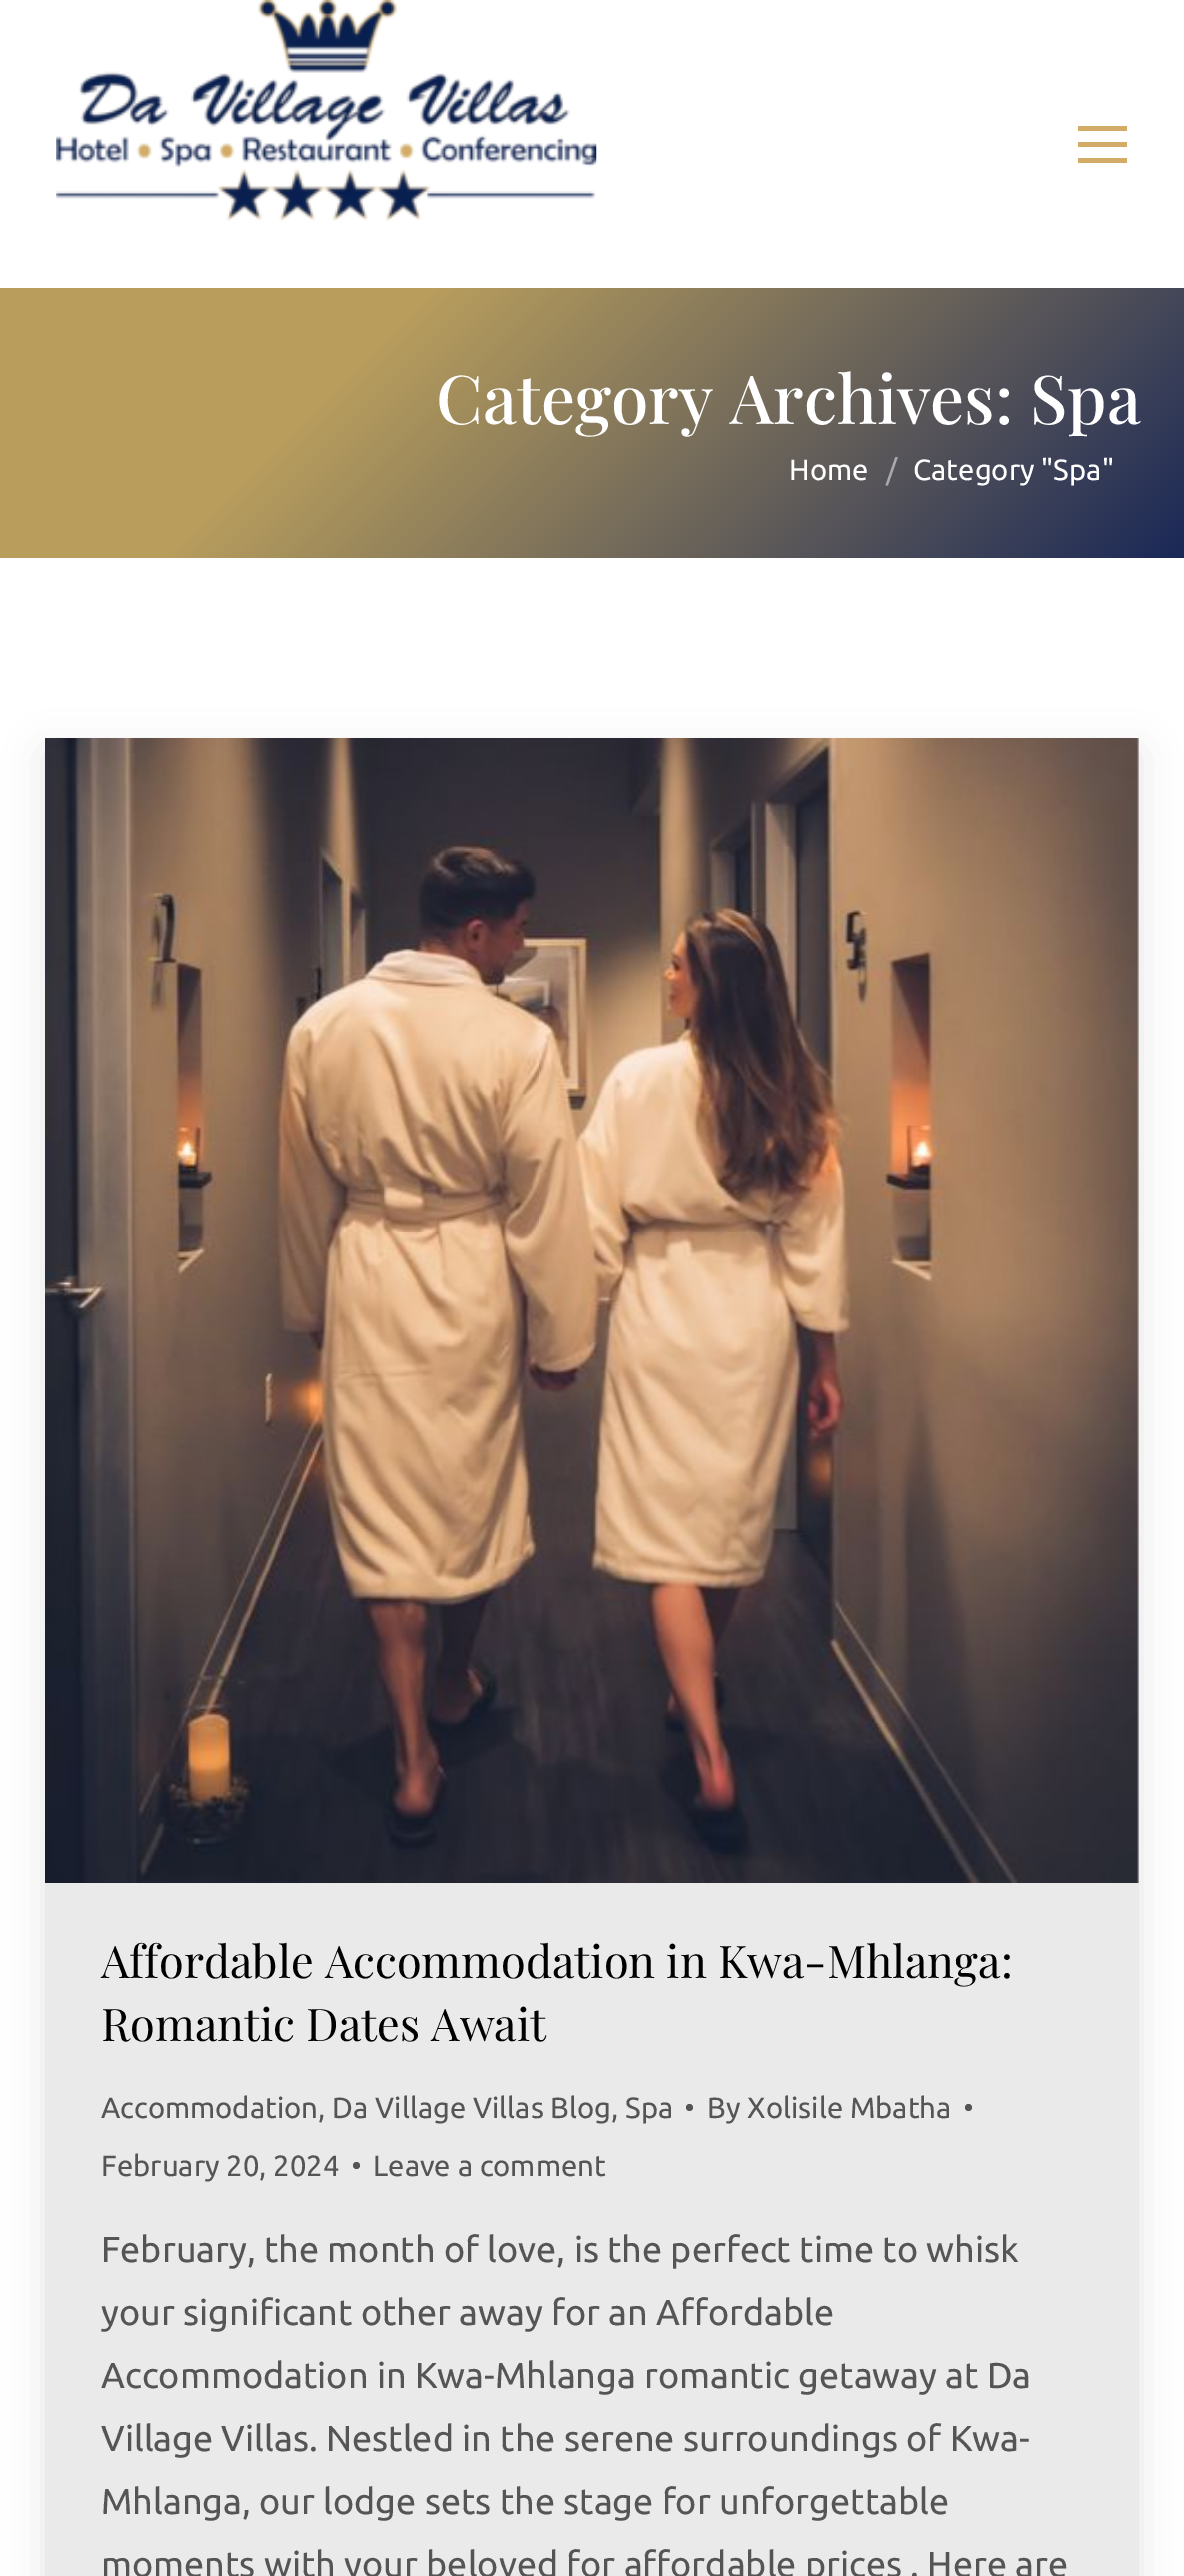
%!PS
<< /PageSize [1184 2576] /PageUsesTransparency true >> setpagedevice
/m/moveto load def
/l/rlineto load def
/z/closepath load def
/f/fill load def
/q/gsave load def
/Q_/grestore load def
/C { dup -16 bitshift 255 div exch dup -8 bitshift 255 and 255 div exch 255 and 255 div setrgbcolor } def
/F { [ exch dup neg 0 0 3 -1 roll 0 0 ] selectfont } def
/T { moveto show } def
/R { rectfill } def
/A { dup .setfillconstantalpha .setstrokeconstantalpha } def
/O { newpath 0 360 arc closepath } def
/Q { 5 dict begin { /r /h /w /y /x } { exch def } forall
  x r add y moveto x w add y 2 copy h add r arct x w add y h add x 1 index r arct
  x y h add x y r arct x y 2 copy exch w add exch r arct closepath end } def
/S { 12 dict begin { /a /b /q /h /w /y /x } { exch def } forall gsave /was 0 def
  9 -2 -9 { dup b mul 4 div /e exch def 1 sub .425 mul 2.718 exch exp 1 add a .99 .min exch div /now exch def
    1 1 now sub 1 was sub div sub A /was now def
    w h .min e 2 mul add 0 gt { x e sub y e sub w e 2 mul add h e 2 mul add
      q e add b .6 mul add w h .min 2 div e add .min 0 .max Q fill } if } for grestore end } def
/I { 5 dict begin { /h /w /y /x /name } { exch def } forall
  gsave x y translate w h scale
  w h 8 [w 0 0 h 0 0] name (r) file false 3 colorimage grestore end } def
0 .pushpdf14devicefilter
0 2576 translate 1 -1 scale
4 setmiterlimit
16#FFFFFF C
0 0 1184 2576 R
(1.rgb) 56 0 541 221 I
16#D3AD67 C
1078 126 49 5 R
1078 142 49 5 R
1078 158 49 5 R
q 0 288 m 1184 0 l 0 270 l -1184 0 l z clip newpath
<< /ShadingType 2 /ColorSpace /DeviceRGB /Coords [229 59 957 787] /Extend [true true] /Function << /FunctionType 3 /Domain [0 1] /Functions [<< /FunctionType 2 /Domain [0 1] /C0 [.722 .616 .365] /C1 [.722 .616 .365] /N 1 >> << /FunctionType 2 /Domain [0 1] /C0 [.722 .616 .365] /C1 [.102 .157 .341] /N 1 >>] /Bounds [.3] /Encode [0 1 0 1] >> >> shfill Q_
/PlayfairDisplay-Medium 67.5 F
16#FFFFFF C
(Category Archives: Spa) 436 424 T
/Ubuntu-Regular 29.25 F
(Home) 789 480 T
16#AAA9AC C
(/) 886 480 T
16#FFFFFF C
(Category "Spa") 913 480 T
q
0 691 m 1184 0 l 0 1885 l -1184 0 l z 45 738 m 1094 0 l 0 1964 l -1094 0 l z eoclip newpath
16#000000 C
45 752 1094 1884 0 20 .1 S
Q_
0.5 A
16#D6D6D6 C
45 738 1094 1838 R
1 A
(2.rgb) 45 738 1094 1145 I
/PlayfairDisplay-Regular 45 F
16#000000 C
(Affordable Accommodation in Kwa-Mhlanga:) 101 1978 T
(Romantic Dates Await) 101 2041 T
/Ubuntu-Regular 29.25 F
16#555555 C
(Accommodation, Da Village Villas Blog, Spa) 101 2118 T
689.5 2107.5 3.5 O f
(By Xolisile Mbatha) 707 2118 T
968.5 2107.5 3.5 O f
(February 20, 2024) 101 2176 T
356.5 2165.5 3.5 O f
(Leave a comment) 373 2176 T
/Ubuntu-Regular 36 F
(February, the month of love, is the perfect time to whisk) 101 2262 T
(your significant other away for an Affordable) 101 2325 T
(Accommodation in Kwa-Mhlanga romantic getaway at Da) 101 2388 T
(Village Villas. Nestled in the serene surroundings of Kwa-) 101 2451 T
(Mhlanga, our lodge sets the stage for unforgettable) 101 2514 T
(moments with your beloved for affordable prices . Here are) 101 2577 T
.poppdf14devicefilter showpage
